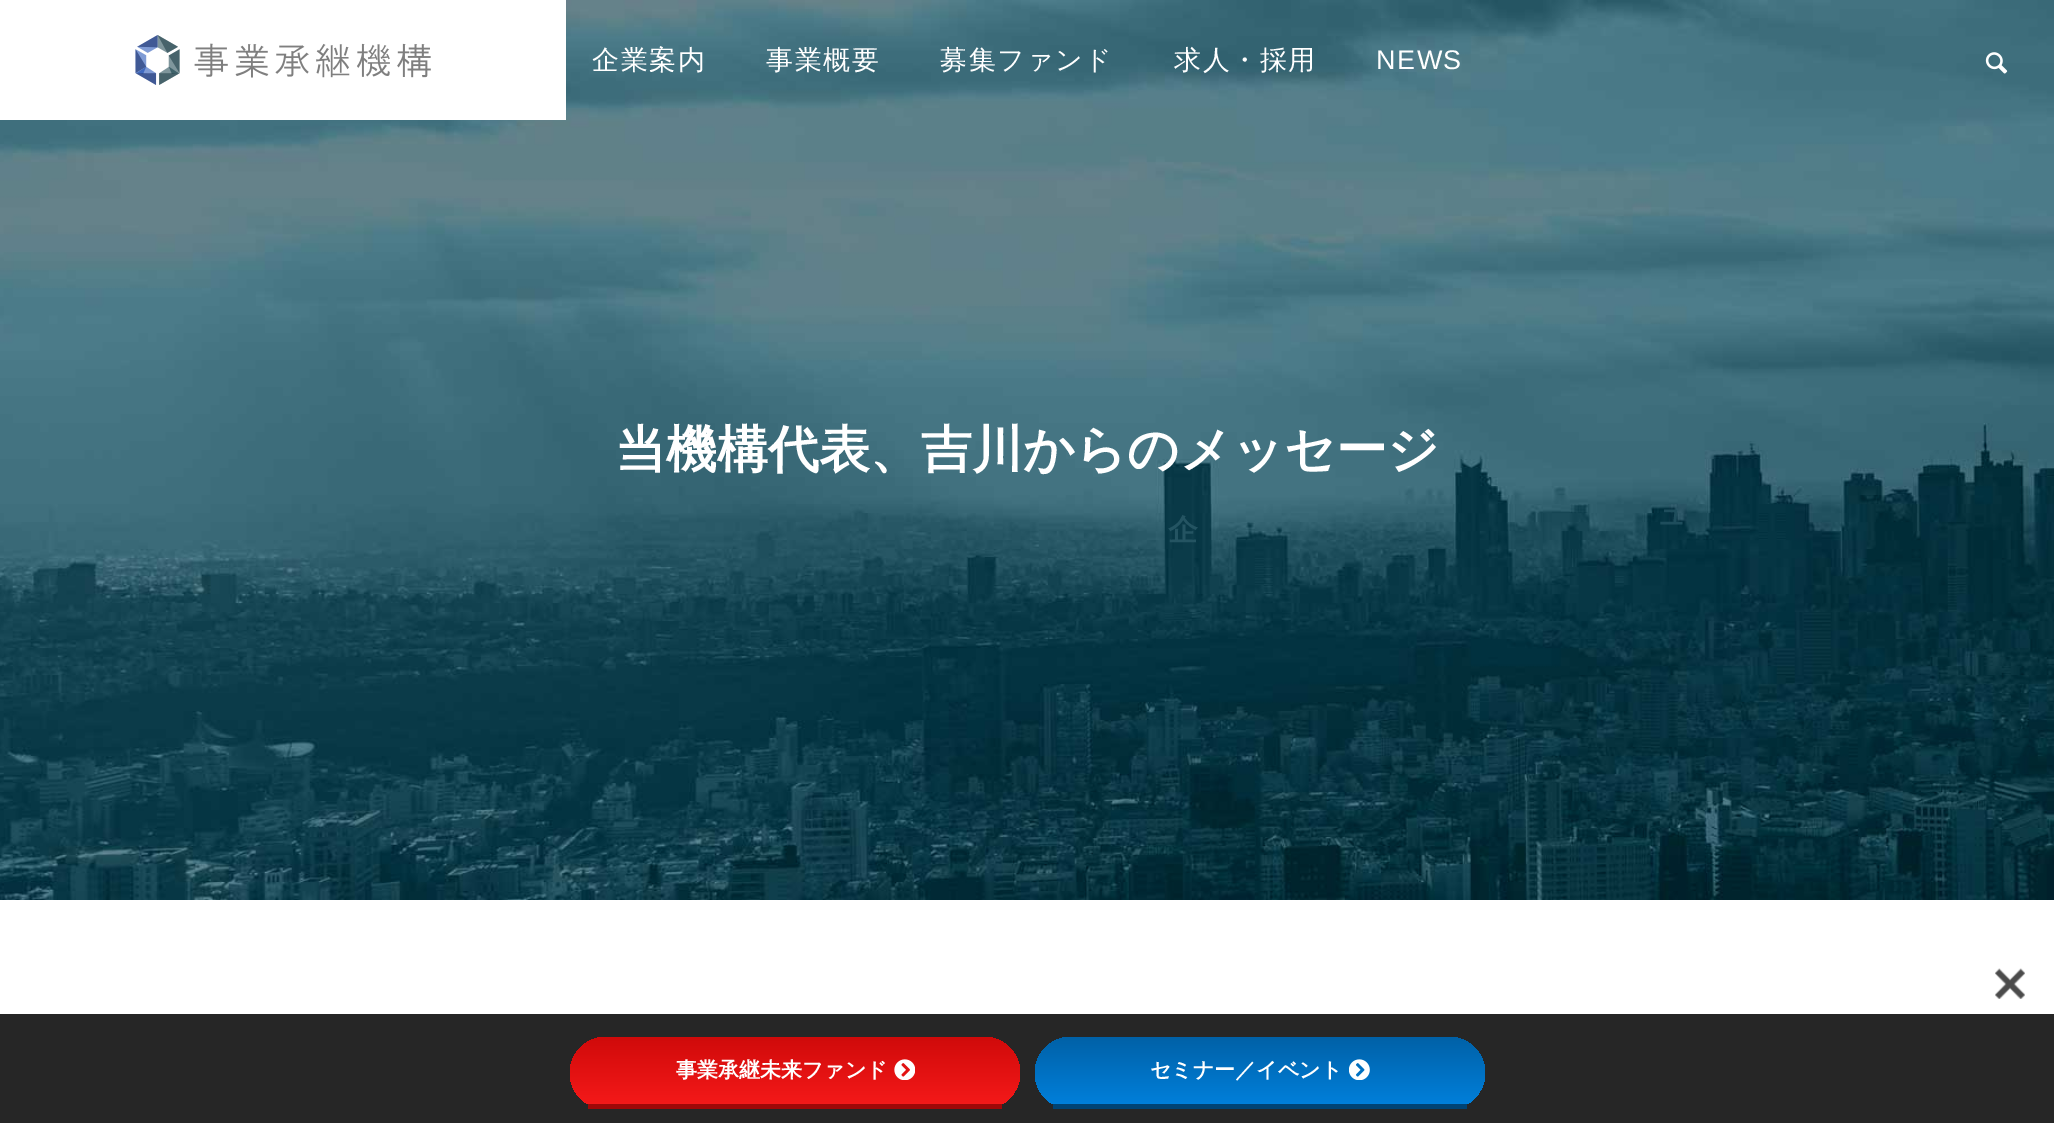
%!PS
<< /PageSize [2054 1123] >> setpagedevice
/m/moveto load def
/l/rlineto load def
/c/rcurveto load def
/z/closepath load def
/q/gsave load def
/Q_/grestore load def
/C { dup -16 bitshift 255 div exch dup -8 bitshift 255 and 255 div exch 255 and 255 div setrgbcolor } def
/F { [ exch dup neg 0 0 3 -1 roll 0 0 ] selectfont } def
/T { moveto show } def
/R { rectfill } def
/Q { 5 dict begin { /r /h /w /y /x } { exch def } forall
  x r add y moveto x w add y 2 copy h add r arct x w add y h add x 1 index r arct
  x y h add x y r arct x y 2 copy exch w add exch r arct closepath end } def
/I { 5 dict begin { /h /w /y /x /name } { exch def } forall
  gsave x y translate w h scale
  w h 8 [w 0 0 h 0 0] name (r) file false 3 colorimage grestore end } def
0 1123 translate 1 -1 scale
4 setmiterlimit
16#FFFFFF C
0 0 2054 1123 R
(3.rgb) 0 0 2054 900 I
0 0 566 120 R
(1.rgb) 135 35 296 50 I
/WenQuanYiZenHei-Medium 27 F
592 69 m 1.5 0 (企業案内) ashow
766 69 m 1.5 0 (事業概要) ashow
940 69 m 1.5 0 (募集ファンド) ashow
1174 69 m 1.5 0 (求人・採用) ashow
/LiberationSans-Regular 27 F
1376 69 m 1.5 0 (NEWS) ashow
(2.rgb) 1985 52 23 22 I
/WenQuanYiZenHei-Bold 30 F
16#245462 C
(企) 1168 540 T
16#1E4D5C C
(ュ) 1656 524 T
/WenQuanYiZenHei-Bold 51 F
16#FFFFFF C
(当機構代表、吉川からのメッセージ) 615 467 T
16#262626 C
0 1014 2054 109 R
(4.rgb) 1995 968 30 31 I
q
570 1037 450 72 36 Q clip newpath
q 606 1037 m 378 0 l 20 0 36 16 36 36 c 0 31 l -450 0 l 0 -31 l 0 -20 16 -36 36 -36 c z clip newpath
<< /ShadingType 2 /ColorSpace /DeviceRGB /Coords [795 1037 795 1104] /Extend [true true] /Function << /FunctionType 2 /Domain [0 1] /C0 [.816 .039 .039] /C1 [.957 .098 .098] /N 1 >> >> shfill Q_
Q_
16#9F0808 C
588 1104 414 5 R
/WenQuanYiZenHei-Bold 21 F
16#FFFFFF C
(事業承継未来ファンド) 676 1077 T
(5.rgb) 894 1059 21 21 I
q
1035 1037 450 72 36 Q clip newpath
q 1071 1037 m 378 0 l 20 0 36 16 36 36 c 0 31 l -450 0 l 0 -31 l 0 -20 16 -36 36 -36 c z clip newpath
<< /ShadingType 2 /ColorSpace /DeviceRGB /Coords [1260 1037 1260 1104] /Extend [true true] /Function << /FunctionType 2 /Domain [0 1] /C0 [0 .38 .655] /C1 [0 .498 .855] /N 1 >> >> shfill Q_
Q_
16#004374 C
1053 1104 414 5 R
16#FFFFFF C
(セミナー／イベント) 1150 1077 T
(6.rgb) 1349 1059 21 21 I
showpage
